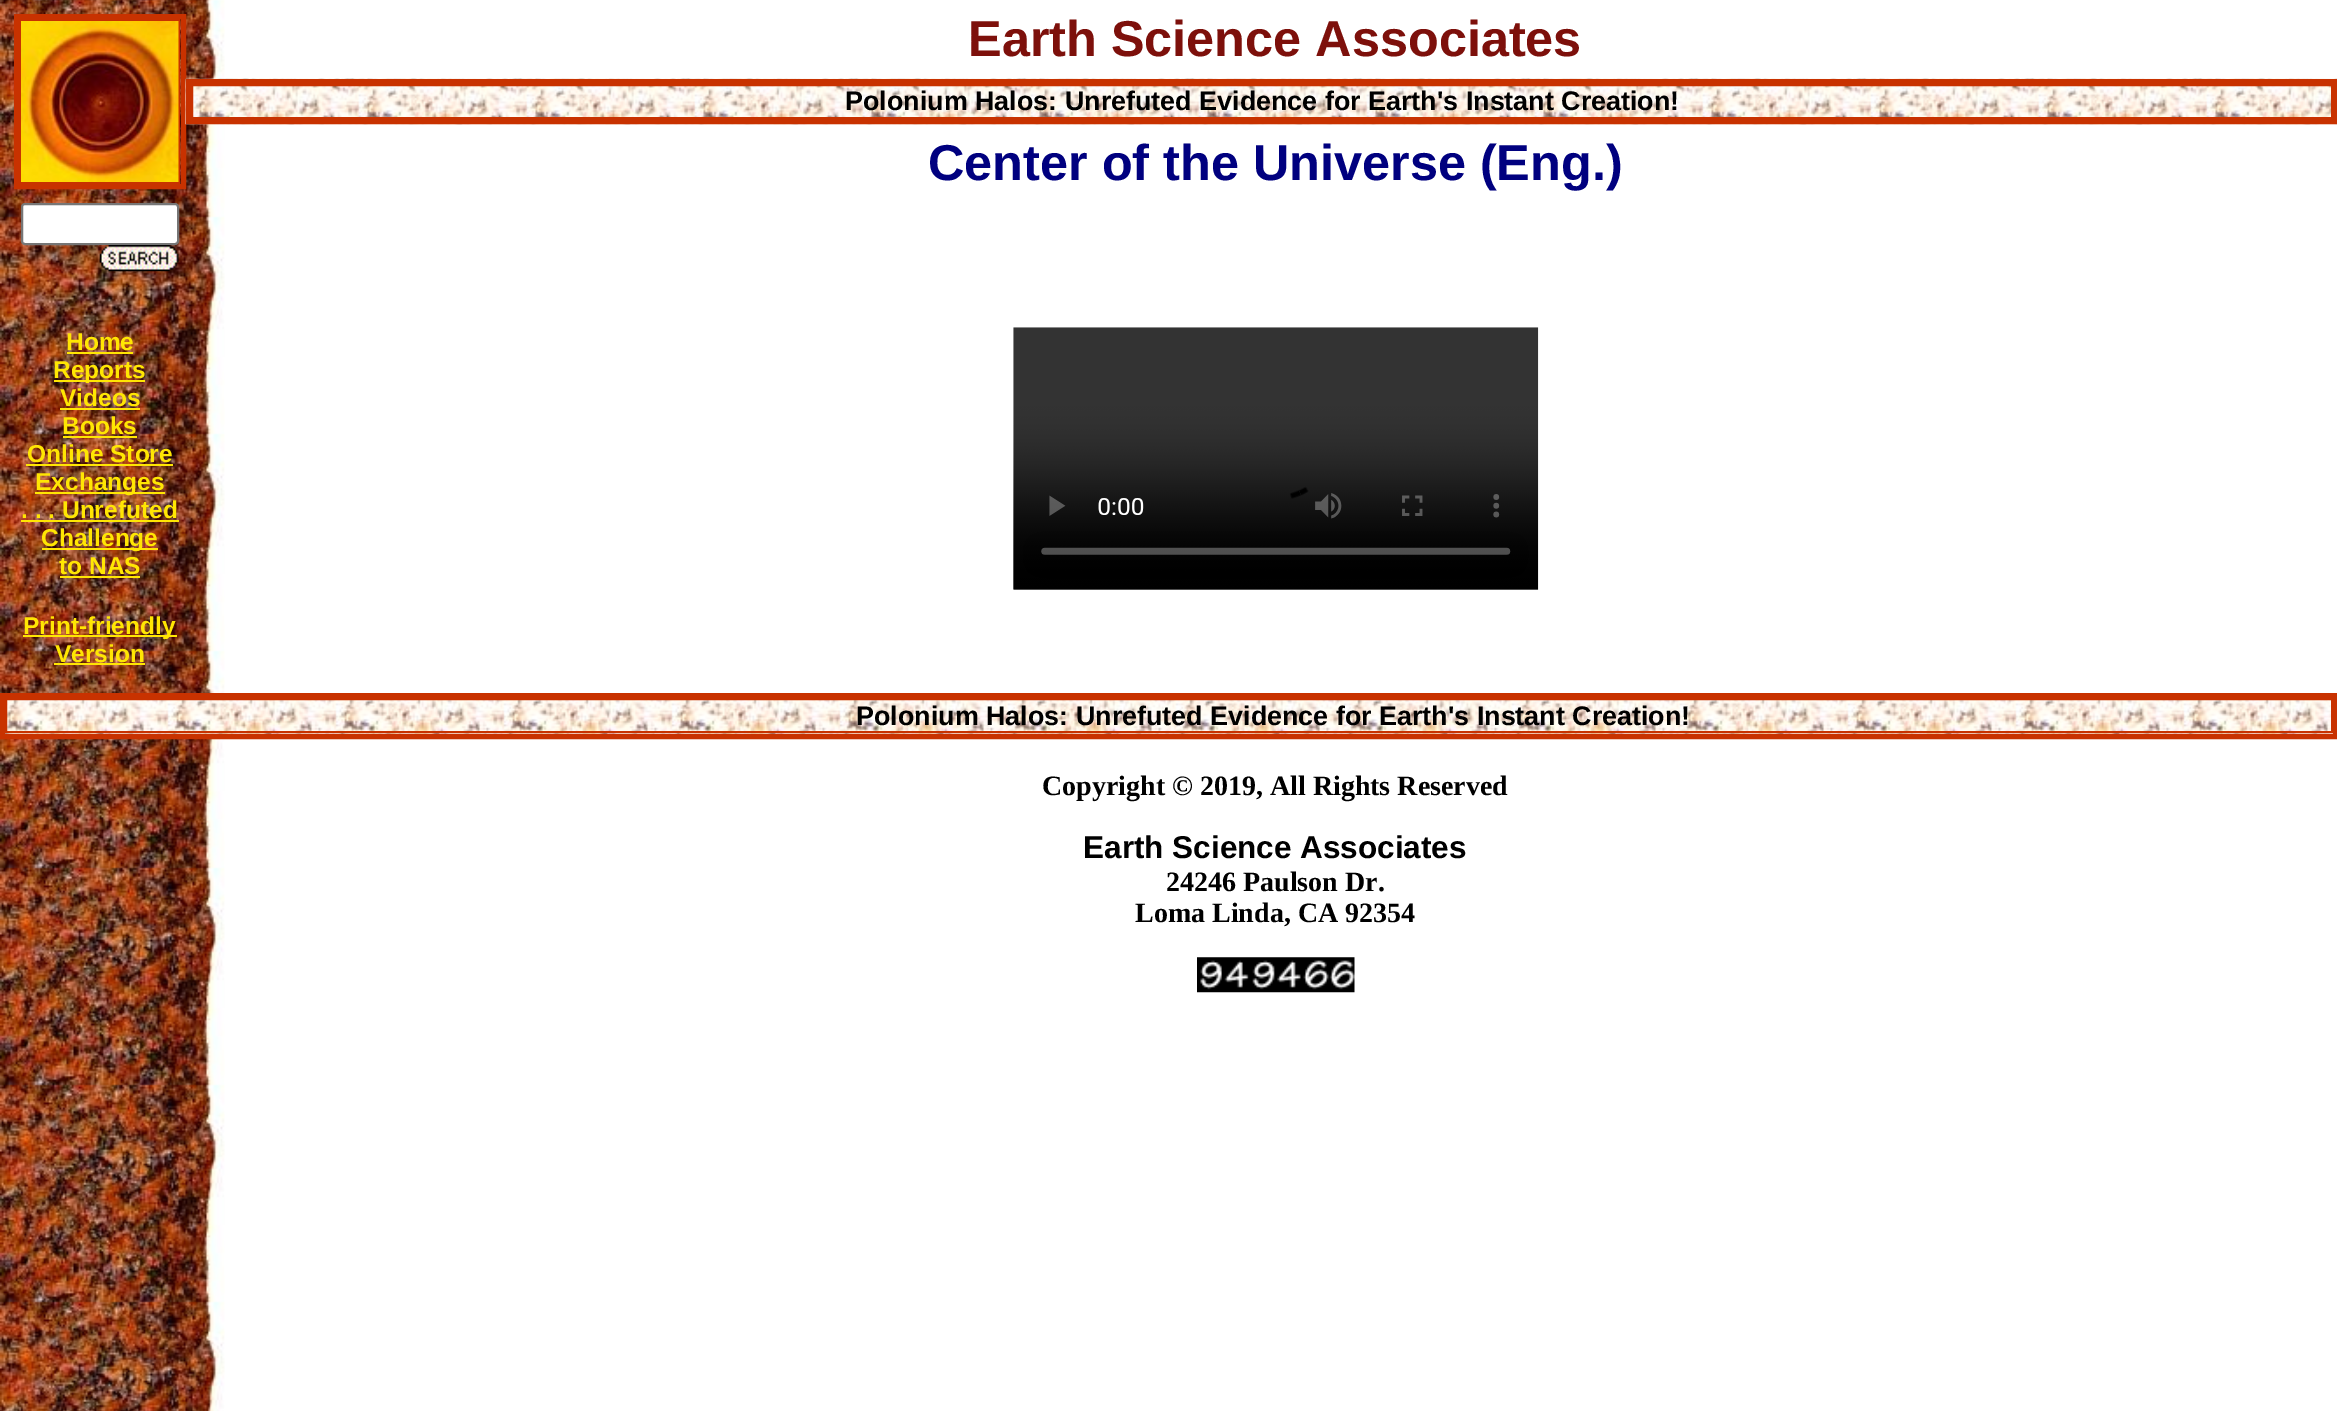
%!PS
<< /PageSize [2337 1411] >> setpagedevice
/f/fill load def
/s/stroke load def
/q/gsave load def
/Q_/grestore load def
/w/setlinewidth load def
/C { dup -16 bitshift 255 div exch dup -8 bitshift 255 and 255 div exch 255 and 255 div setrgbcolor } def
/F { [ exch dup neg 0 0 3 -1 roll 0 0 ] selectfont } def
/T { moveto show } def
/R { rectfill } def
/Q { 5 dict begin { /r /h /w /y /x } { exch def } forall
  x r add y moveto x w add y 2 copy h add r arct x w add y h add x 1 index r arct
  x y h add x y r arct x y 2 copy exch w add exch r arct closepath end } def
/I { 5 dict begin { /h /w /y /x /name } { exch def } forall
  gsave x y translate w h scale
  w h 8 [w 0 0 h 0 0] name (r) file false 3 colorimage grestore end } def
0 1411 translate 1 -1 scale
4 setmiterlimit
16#FFFFFF C
0 0 2337 1411 R
(1.rgb) 0 0 225 1411 I
16#C83200 C
5 w
16.5 16.5 167 170 rectstroke
2 w
20 20 159 163 rectstroke
(2.rgb) 21 21 158 161 I
/LiberationSans-Bold 50.4 F
16#7D100B C
(Earth Science Associates) 968 56 T
(3.rgb) 185 78 2152 47 I
16#C83200 C
5 w
188.5 81.5 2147 40 rectstroke
2 w
192 85 2140 33 rectstroke
/LiberationSans-Bold 26.9 F
16#000000 C
(Polonium Halos: Unrefuted Evidence for Earth's Instant Creation!) 845 110 T
/LiberationSans-Bold 50.4 F
16#00007F C
(Center of the Universe \(Eng.\)) 928 180 T
16#FFFFFF C
22 204 156 40 3 Q q f Q_
16#767676 C
s
(4.rgb) 99 245 80 27 I
/LiberationSans-Bold 24.5 F
16#FFE603 C
(Home) 66 350 T
67 352 66 2 R
54 380 91 2 R
(Reports) 53 378 T
(Videos) 60 406 T
60 408 80 2 R
(Books) 62 434 T
63 436 74 2 R
(Online Store) 27 462 T
26 464 147 2 R
35 492 130 2 R
(Exchanges) 35 490 T
(. . . Unrefuted) 21 518 T
21 520 158 2 R
42 548 116 2 R
(Challenge) 41 546 T
(to NAS) 59 574 T
60 576 80 2 R
23 635 154 2 R
(Print-friendly) 23 634 T
(Version) 55 662 T
54 663 91 2 R
(5.rgb) 1013 327 526 263 I
(6.rgb) 5 700 2328 34 I
16#C83200 C
5 w
2.5 695.5 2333 41 rectstroke
2 w
6 699 2326 33 rectstroke
/LiberationSans-Bold 26.9 F
16#000000 C
(Polonium Halos: Unrefuted Evidence for Earth's Instant Creation!) 856 725 T
/LiberationSerif-Bold 28 F
(Copyright © 2019, All Rights Reserved) 1042 795 T
/LiberationSans-Bold 31.5 F
(Earth Science Associates) 1083 858 T
/LiberationSerif-Bold 28 F
(24246 Paulson Dr.) 1166 891 T
(Loma Linda, CA 92354) 1135 922 T
(7.rgb) 1197 957 158 36 I
showpage
